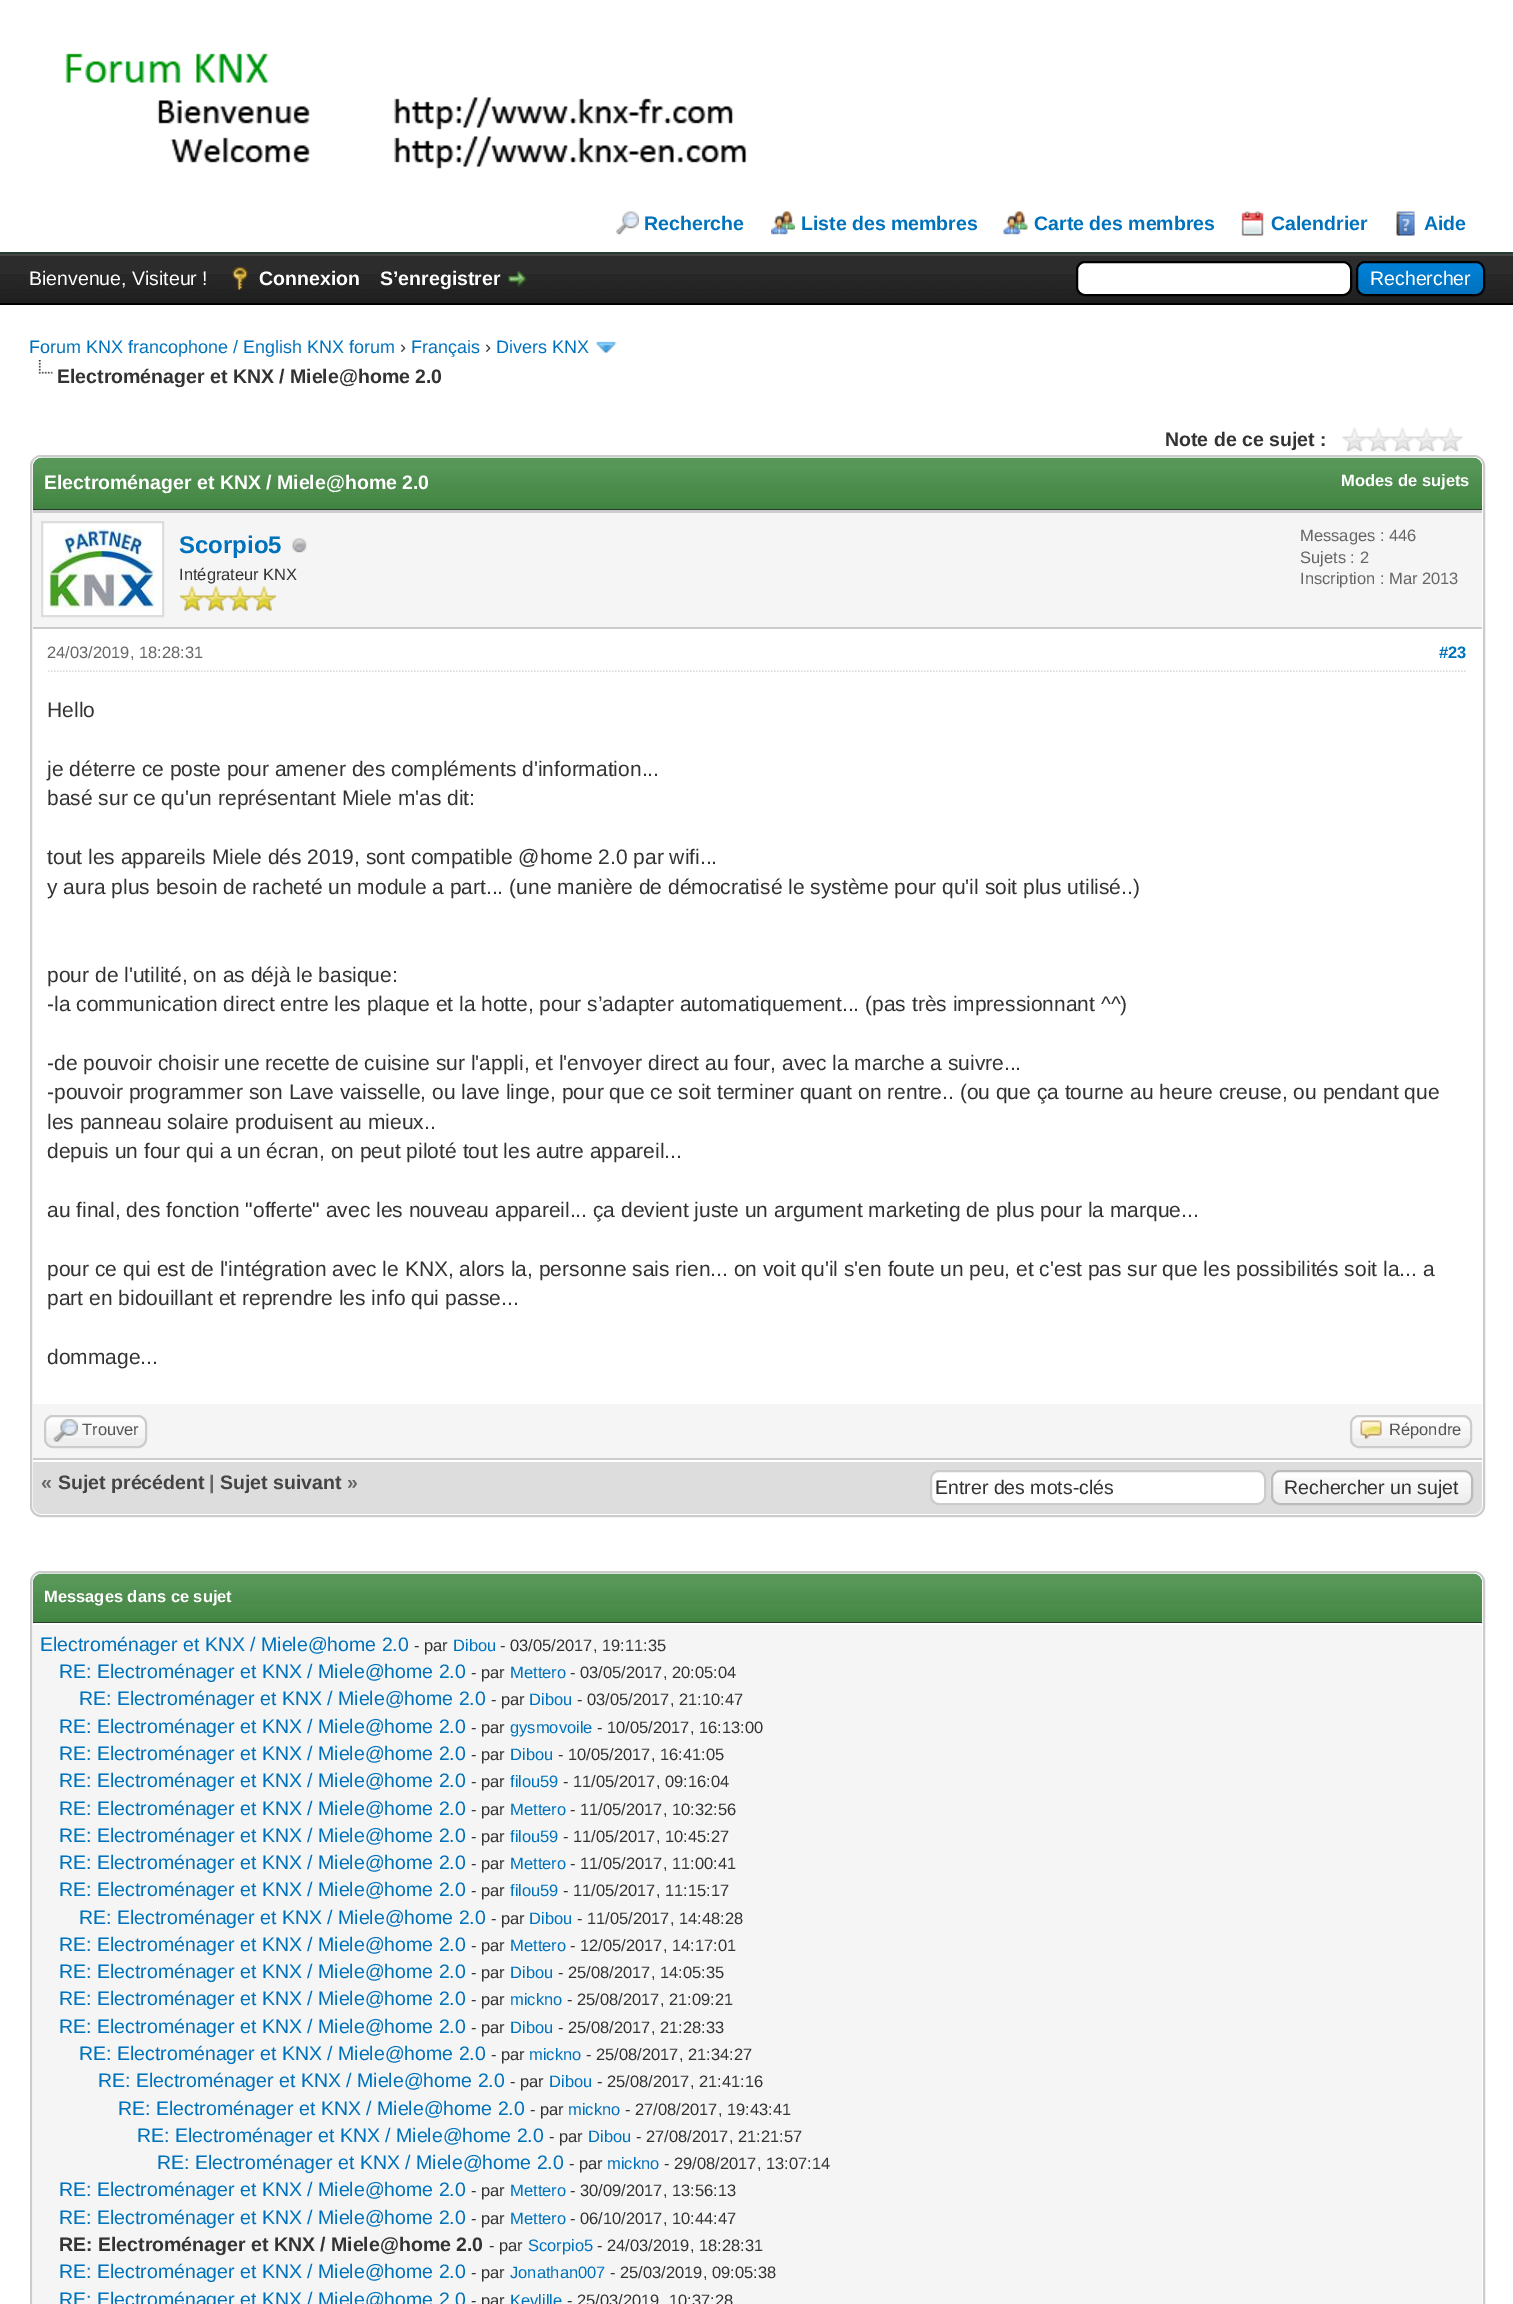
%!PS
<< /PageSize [1513 2304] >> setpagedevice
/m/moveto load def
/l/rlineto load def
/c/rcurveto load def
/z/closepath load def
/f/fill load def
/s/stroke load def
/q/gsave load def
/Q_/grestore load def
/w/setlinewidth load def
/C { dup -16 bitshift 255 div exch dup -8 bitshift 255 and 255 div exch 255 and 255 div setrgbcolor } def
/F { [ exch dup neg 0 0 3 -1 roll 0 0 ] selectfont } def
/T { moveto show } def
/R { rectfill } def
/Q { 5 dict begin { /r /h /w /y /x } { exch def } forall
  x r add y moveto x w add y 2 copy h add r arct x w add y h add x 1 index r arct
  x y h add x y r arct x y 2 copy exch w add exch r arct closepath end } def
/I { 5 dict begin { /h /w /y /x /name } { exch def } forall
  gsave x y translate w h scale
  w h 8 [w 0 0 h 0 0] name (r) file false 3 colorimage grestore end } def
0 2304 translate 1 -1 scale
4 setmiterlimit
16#FFFFFF C
0 0 1513 2304 R
16#263C30 C
0 252 1513 2 R
(1.rgb) 65 53 682 116 I
(2.rgb) 616 211 23 24 I
/LiberationSans-Bold 19.5 F
16#0072BC C
(Recherche) 644 230 T
(3.rgb) 771 211 24 24 I
(Liste des membres) 801 230 T
(4.rgb) 1003 211 25 24 I
(Carte des membres) 1034 230 T
(5.rgb) 1241 211 23 25 I
(Calendrier) 1271 230 T
(6.rgb) 1396 211 19 25 I
(Aide) 1424 230 T
(7.rgb) 0 256 1513 47 I
16#444444 C
0 254 1513 2 R
16#000000 C
0 303 1513 2 R
/LiberationSans-Regular 19.5 F
16#FFFFFF C
(Bienvenue, Visiteur !) 29 285 T
(8.rgb) 232 267 16 23 I
/LiberationSans-Bold 19.5 F
(Connexion) 259 285 T
(S’enregistrer) 380 285 T
(9.rgb) 508 271 19 16 I
1077 262 274 33 8 Q q f Q_
16#000000 C
2 w
s
(10.rgb) 1356 262 129 34 I
1357 262 127 33 8 Q s
/LiberationSans-Regular 19.5 F
16#FFFFFF C
(Rechercher) 1370 285 T
/LiberationSans-Regular 18 F
16#0072BC C
(Forum KNX francophone / English KNX forum) 29 353 T
16#333333 C
(›) 400 353 T
16#0072BC C
(Français) 411 353 T
16#333333 C
(›) 485 353 T
16#0072BC C
(Divers KNX) 496 353 T
(11.rgb) 595 341 22 12 I
(12.rgb) 38 360 15 14 I
/LiberationSans-Bold 19.5 F
16#333333 C
(Electroménager et KNX / Miele@home 2.0) 57 383 T
(Note de ce sujet :) 1165 446 T
(13.rgb) 1342 427 121 25 I
16#CCCCCC C
31 456 1453 1060 10 Q s
(14.rgb) 33 457 1449 52 I
16#263C30 C
33 509 1449 1 R
16#FFFFFF C
(Electroménager et KNX / Miele@home 2.0) 44 489 T
/LiberationSans-Bold 16.5 F
(Modes de sujets) 1341 486 T
16#F5F5F5 C
33 513 1449 114 R
16#CCCCCC C
33 510 1449 3 R
33 627 1449 2 R
16#FFFFFF C
42 522 m 121 0 l 0 94 l -121 0 l z q f Q_
16#DDDDDD C
s
(15.rgb) 49 529 106 79 I
/LiberationSans-Bold 24 F
16#0072BC C
(Scorpio5) 179 553 T
(16.rgb) 292 538 15 15 I
/LiberationSans-Regular 16.5 F
16#333333 C
(Intégrateur KNX) 179 580 T
(17.rgb) 180 586 24 25 I
(17.rgb) 204 586 24 25 I
(17.rgb) 228 586 24 25 I
(17.rgb) 252 586 24 25 I
16#666666 C
(Messages : 446) 1300 541 T
(Sujets : 2) 1300 563 T
(Inscription : Mar 2013) 1300 584 T
16#DDDDDD C
1.5 w
[1.5 1.5] 0 setdash
48 671 m 1419 0 l s
16#666666 C
(24/03/2019, 18:28:31) 47 658 T
/LiberationSans-Bold 16.5 F
16#0072BC C
(#23) 1439 658 T
/LiberationSans-Regular 21 F
16#333333 C
(Hello) 47 717 T
(je déterre ce poste pour amener des compléments d'information...) 47 776 T
(basé sur ce qu'un représentant Miele m'as dit:) 47 805 T
(tout les appareils Miele dés 2019, sont compatible @home 2.0 par wifi...) 47 864 T
(y aura plus besoin de racheté un module a part... \(une manière de démocratisé le système pour qu'il soit plus utilisé..\)) 47 894 T
(pour de l'utilité, on as déjà le basique:) 47 982 T
(-la communication direct entre les plaque et la hotte, pour s’adapter automatiquement... \(pas très impressionnant ^^\)) 47 1011 T
(-de pouvoir choisir une recette de cuisine sur l'appli, et l'envoyer direct au four, avec la marche a suivre...) 47 1070 T
(-pouvoir programmer son Lave vaisselle, ou lave linge, pour que ce soit terminer quant on rentre.. \(ou que ça tourne au heure creuse, ou pendant que) 47 1099 T
(les panneau solaire produisent au mieux..) 47 1129 T
(depuis un four qui a un écran, on peut piloté tout les autre appareil...) 47 1158 T
(au final, des fonction "offerte" avec les nouveau appareil... ça devient juste un argument marketing de plus pour la marque...) 47 1217 T
(pour ce qui est de l'intégration avec le KNX, alors la, personne sais rien... on voit qu'il s'en foute un peu, et c'est pas sur que les possibilités soit la... a) 47 1276 T
(part en bidouillant et reprendre les info qui passe...) 47 1305 T
(dommage...) 47 1364 T
16#F5F5F5 C
33 1404 1449 54 R
16#CCCCCC C
33 1458 1449 2 R
16#EEEEEE C
44 1415 103 33 9 Q f
(18.rgb) 44 1416 103 22 I
16#CCCCCC C
2 w
[] 0 setdash
45 1416 101 31 8 Q s
(19.rgb) 53 1419 25 23 I
/LiberationSans-Regular 16.5 F
16#555555 C
(Trouver) 82 1435 T
16#EEEEEE C
1350 1415 122 33 9 Q f
(20.rgb) 1350 1416 121 22 I
16#CCCCCC C
1351 1416 120 31 8 Q s
(21.rgb) 1360 1420 22 19 I
16#555555 C
(Répondre) 1389 1435 T
16#DDDDDD C
33 1460 m 1449 0 l 0 45 l 0 5 -4 9 -9 9 c -1431 0 l -5 0 -9 -4 -9 -9 c z f
16#FFFFFF C
33 1460 1449 2 R
/LiberationSans-Bold 19.5 F
16#666666 C
(«) 41 1489 T
16#444444 C
(Sujet précédent) 58 1489 T
16#666666 C
(|) 209 1489 T
16#444444 C
(Sujet suivant) 220 1489 T
16#666666 C
(») 347 1489 T
16#FFFFFF C
931 1471 334 33 8 Q q f Q_
16#CCCCCC C
s
/LiberationSans-Regular 19.5 F
16#333333 C
(Entrer des mots-clés) 935 1494 T
16#EEEEEE C
1271 1470 202 35 9 Q f
(22.rgb) 1270 1471 203 29 I
16#BBBBBB C
1272 1471 200 33 8 Q s
16#333333 C
(Rechercher un sujet) 1284 1494 T
16#CCCCCC C
31 1572 1453 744 10 Q s
(23.rgb) 33 1573 1449 49 I
16#263C30 C
33 1622 1449 1 R
/LiberationSans-Bold 16.5 F
16#FFFFFF C
(Messages dans ce sujet) 44 1602 T
16#F5F5F5 C
33 1625 1449 679 R
/LiberationSans-Regular 19.5 F
16#0072BC C
(Electroménager et KNX / Miele@home 2.0) 40 1651 T
/LiberationSans-Regular 16.5 F
16#333333 C
(- par) 414 1651 T
16#0072BC C
(Dibou) 453 1651 T
16#333333 C
(- 03/05/2017, 19:11:35) 500 1651 T
/LiberationSans-Regular 19.5 F
16#0072BC C
(RE: Electroménager et KNX / Miele@home 2.0) 59 1678 T
/LiberationSans-Regular 16.5 F
16#333333 C
(- par) 471 1678 T
16#0072BC C
(Mettero) 510 1678 T
16#333333 C
(- 03/05/2017, 20:05:04) 570 1678 T
/LiberationSans-Regular 19.5 F
16#0072BC C
(RE: Electroménager et KNX / Miele@home 2.0) 79 1705 T
/LiberationSans-Regular 16.5 F
16#333333 C
(- par) 491 1705 T
16#0072BC C
(Dibou) 529 1705 T
16#333333 C
(- 03/05/2017, 21:10:47) 577 1705 T
/LiberationSans-Regular 19.5 F
16#0072BC C
(RE: Electroménager et KNX / Miele@home 2.0) 59 1733 T
/LiberationSans-Regular 16.5 F
16#333333 C
(- par) 471 1733 T
16#0072BC C
(gysmovoile) 510 1733 T
16#333333 C
(- 10/05/2017, 16:13:00) 597 1733 T
/LiberationSans-Regular 19.5 F
16#0072BC C
(RE: Electroménager et KNX / Miele@home 2.0) 59 1760 T
/LiberationSans-Regular 16.5 F
16#333333 C
(- par) 471 1760 T
16#0072BC C
(Dibou) 510 1760 T
16#333333 C
(- 10/05/2017, 16:41:05) 558 1760 T
/LiberationSans-Regular 19.5 F
16#0072BC C
(RE: Electroménager et KNX / Miele@home 2.0) 59 1787 T
/LiberationSans-Regular 16.5 F
16#333333 C
(- par) 471 1787 T
16#0072BC C
(filou59) 510 1787 T
16#333333 C
(- 11/05/2017, 09:16:04) 563 1787 T
/LiberationSans-Regular 19.5 F
16#0072BC C
(RE: Electroménager et KNX / Miele@home 2.0) 59 1815 T
/LiberationSans-Regular 16.5 F
16#333333 C
(- par) 471 1815 T
16#0072BC C
(Mettero) 510 1815 T
16#333333 C
(- 11/05/2017, 10:32:56) 570 1815 T
/LiberationSans-Regular 19.5 F
16#0072BC C
(RE: Electroménager et KNX / Miele@home 2.0) 59 1842 T
/LiberationSans-Regular 16.5 F
16#333333 C
(- par) 471 1842 T
16#0072BC C
(filou59) 510 1842 T
16#333333 C
(- 11/05/2017, 10:45:27) 563 1842 T
/LiberationSans-Regular 19.5 F
16#0072BC C
(RE: Electroménager et KNX / Miele@home 2.0) 59 1869 T
/LiberationSans-Regular 16.5 F
16#333333 C
(- par) 471 1869 T
16#0072BC C
(Mettero) 510 1869 T
16#333333 C
(- 11/05/2017, 11:00:41) 570 1869 T
/LiberationSans-Regular 19.5 F
16#0072BC C
(RE: Electroménager et KNX / Miele@home 2.0) 59 1896 T
/LiberationSans-Regular 16.5 F
16#333333 C
(- par) 471 1896 T
16#0072BC C
(filou59) 510 1896 T
16#333333 C
(- 11/05/2017, 11:15:17) 563 1896 T
/LiberationSans-Regular 19.5 F
16#0072BC C
(RE: Electroménager et KNX / Miele@home 2.0) 79 1924 T
/LiberationSans-Regular 16.5 F
16#333333 C
(- par) 491 1924 T
16#0072BC C
(Dibou) 529 1924 T
16#333333 C
(- 11/05/2017, 14:48:28) 577 1924 T
/LiberationSans-Regular 19.5 F
16#0072BC C
(RE: Electroménager et KNX / Miele@home 2.0) 59 1951 T
/LiberationSans-Regular 16.5 F
16#333333 C
(- par) 471 1951 T
16#0072BC C
(Mettero) 510 1951 T
16#333333 C
(- 12/05/2017, 14:17:01) 570 1951 T
/LiberationSans-Regular 19.5 F
16#0072BC C
(RE: Electroménager et KNX / Miele@home 2.0) 59 1978 T
/LiberationSans-Regular 16.5 F
16#333333 C
(- par) 471 1978 T
16#0072BC C
(Dibou) 510 1978 T
16#333333 C
(- 25/08/2017, 14:05:35) 558 1978 T
/LiberationSans-Regular 19.5 F
16#0072BC C
(RE: Electroménager et KNX / Miele@home 2.0) 59 2005 T
/LiberationSans-Regular 16.5 F
16#333333 C
(- par) 471 2005 T
16#0072BC C
(mickno) 510 2005 T
16#333333 C
(- 25/08/2017, 21:09:21) 567 2005 T
/LiberationSans-Regular 19.5 F
16#0072BC C
(RE: Electroménager et KNX / Miele@home 2.0) 59 2033 T
/LiberationSans-Regular 16.5 F
16#333333 C
(- par) 471 2033 T
16#0072BC C
(Dibou) 510 2033 T
16#333333 C
(- 25/08/2017, 21:28:33) 558 2033 T
/LiberationSans-Regular 19.5 F
16#0072BC C
(RE: Electroménager et KNX / Miele@home 2.0) 79 2060 T
/LiberationSans-Regular 16.5 F
16#333333 C
(- par) 491 2060 T
16#0072BC C
(mickno) 529 2060 T
16#333333 C
(- 25/08/2017, 21:34:27) 586 2060 T
/LiberationSans-Regular 19.5 F
16#0072BC C
(RE: Electroménager et KNX / Miele@home 2.0) 98 2087 T
/LiberationSans-Regular 16.5 F
16#333333 C
(- par) 510 2087 T
16#0072BC C
(Dibou) 549 2087 T
16#333333 C
(- 25/08/2017, 21:41:16) 597 2087 T
/LiberationSans-Regular 19.5 F
16#0072BC C
(RE: Electroménager et KNX / Miele@home 2.0) 118 2115 T
/LiberationSans-Regular 16.5 F
16#333333 C
(- par) 530 2115 T
16#0072BC C
(mickno) 568 2115 T
16#333333 C
(- 27/08/2017, 19:43:41) 625 2115 T
/LiberationSans-Regular 19.5 F
16#0072BC C
(RE: Electroménager et KNX / Miele@home 2.0) 137 2142 T
/LiberationSans-Regular 16.5 F
16#333333 C
(- par) 549 2142 T
16#0072BC C
(Dibou) 588 2142 T
16#333333 C
(- 27/08/2017, 21:21:57) 636 2142 T
/LiberationSans-Regular 19.5 F
16#0072BC C
(RE: Electroménager et KNX / Miele@home 2.0) 157 2169 T
/LiberationSans-Regular 16.5 F
16#333333 C
(- par) 569 2169 T
16#0072BC C
(mickno) 607 2169 T
16#333333 C
(- 29/08/2017, 13:07:14) 664 2169 T
/LiberationSans-Regular 19.5 F
16#0072BC C
(RE: Electroménager et KNX / Miele@home 2.0) 59 2196 T
/LiberationSans-Regular 16.5 F
16#333333 C
(- par) 471 2196 T
16#0072BC C
(Mettero) 510 2196 T
16#333333 C
(- 30/09/2017, 13:56:13) 570 2196 T
/LiberationSans-Regular 19.5 F
16#0072BC C
(RE: Electroménager et KNX / Miele@home 2.0) 59 2224 T
/LiberationSans-Regular 16.5 F
16#333333 C
(- par) 471 2224 T
16#0072BC C
(Mettero) 510 2224 T
16#333333 C
(- 06/10/2017, 10:44:47) 570 2224 T
/LiberationSans-Bold 19.5 F
(RE: Electroménager et KNX / Miele@home 2.0) 59 2251 T
/LiberationSans-Regular 16.5 F
(- par) 489 2251 T
16#0072BC C
(Scorpio5) 528 2251 T
16#333333 C
(- 24/03/2019, 18:28:31) 597 2251 T
/LiberationSans-Regular 19.5 F
16#0072BC C
(RE: Electroménager et KNX / Miele@home 2.0) 59 2278 T
/LiberationSans-Regular 16.5 F
16#333333 C
(- par) 471 2278 T
16#0072BC C
(Jonathan007) 510 2278 T
16#333333 C
(- 25/03/2019, 09:05:38) 610 2278 T
/LiberationSans-Regular 19.5 F
16#0072BC C
(RE: Electroménager et KNX / Miele@home 2.0) 59 2306 T
/LiberationSans-Regular 16.5 F
16#333333 C
(- par) 471 2306 T
16#0072BC C
(Kevlille) 510 2306 T
16#333333 C
(- 25/03/2019, 10:37:28) 567 2306 T
showpage
